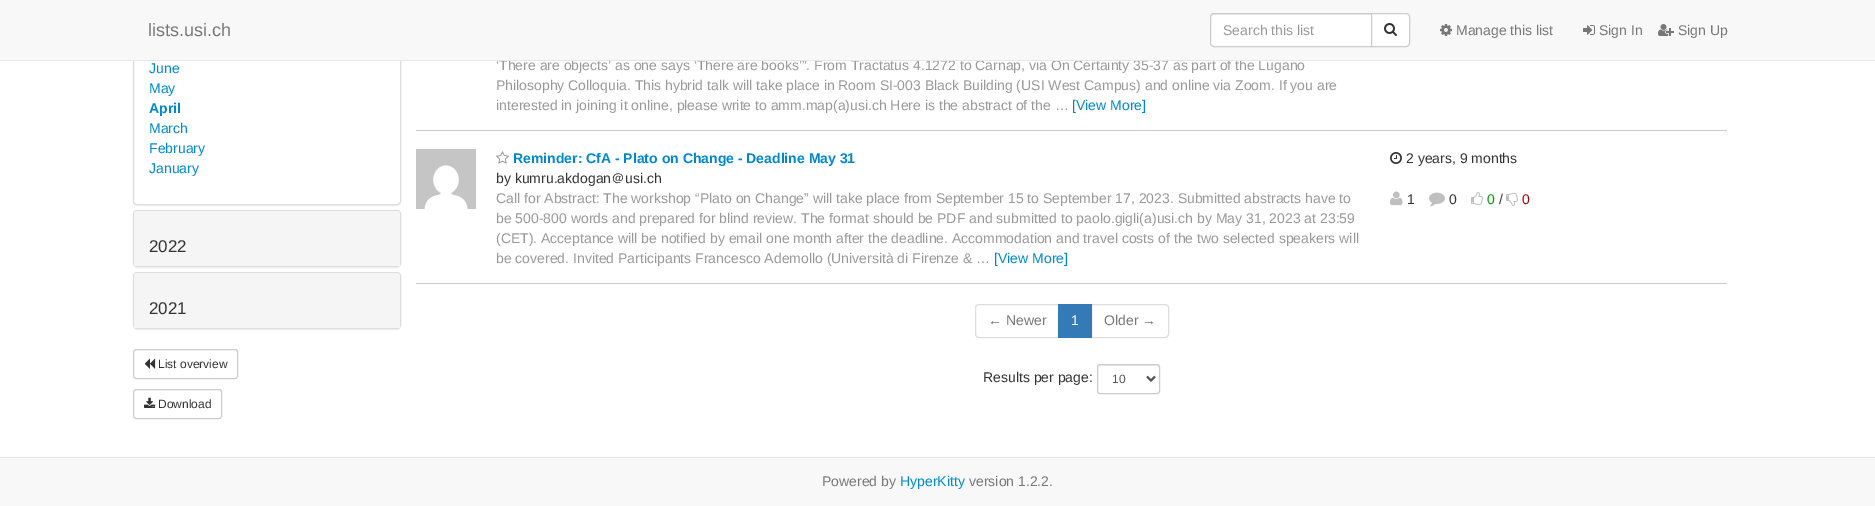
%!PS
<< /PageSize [1875 506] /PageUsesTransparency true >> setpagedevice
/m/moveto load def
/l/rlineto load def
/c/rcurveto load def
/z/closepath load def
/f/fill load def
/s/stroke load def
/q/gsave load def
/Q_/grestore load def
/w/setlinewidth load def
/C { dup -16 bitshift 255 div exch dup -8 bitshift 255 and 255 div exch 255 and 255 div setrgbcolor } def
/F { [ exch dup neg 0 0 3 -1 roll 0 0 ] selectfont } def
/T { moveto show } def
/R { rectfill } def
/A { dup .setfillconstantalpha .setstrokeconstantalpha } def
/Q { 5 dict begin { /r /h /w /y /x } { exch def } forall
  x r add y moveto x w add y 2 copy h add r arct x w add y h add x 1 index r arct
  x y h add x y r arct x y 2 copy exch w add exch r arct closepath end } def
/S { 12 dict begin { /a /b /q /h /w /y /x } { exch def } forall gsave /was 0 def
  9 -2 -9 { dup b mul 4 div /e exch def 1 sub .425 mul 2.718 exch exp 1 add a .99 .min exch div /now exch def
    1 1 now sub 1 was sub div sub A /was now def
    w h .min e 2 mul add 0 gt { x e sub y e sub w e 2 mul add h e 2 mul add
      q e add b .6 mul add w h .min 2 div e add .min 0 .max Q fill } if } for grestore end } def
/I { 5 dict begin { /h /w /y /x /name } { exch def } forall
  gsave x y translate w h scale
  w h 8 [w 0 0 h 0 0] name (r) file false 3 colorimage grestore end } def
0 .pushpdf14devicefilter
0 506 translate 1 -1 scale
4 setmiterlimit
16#FFFFFF C
0 0 1875 506 R
16#000000 C
133 -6 268 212 4 .5 .05 S
16#FFFFFF C
133.5 -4.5 267 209 3.5 Q q f Q_
16#DDDDDD C
s
/LiberationSans-Regular 14 F
16#999999 C
(‘There are objects’ as one says ‘There are books’”. From Tractatus 4.1272 to Carnap, via On Certainty 35-37 as part of the Lugano) 496 70 T
16#F8F8F8 C
0 0 1875 60 R
16#E7E7E7 C
0 60 1875 1 R
/LiberationSans-Regular 18 F
16#777777 C
(lists.usi.ch) 148 36 T
16#FFFFFF C
1214 13 m 158 0 l 0 34 l -158 0 l -2 0 -4 -2 -4 -4 c 0 -26 l 0 -2 2 -4 4 -4 c z f
16#ECECEC C
1214 15 m 157 0 l 0 -1 l -158 0 l -2 0 -2 2 -2 4 c 0 -2 1 -3 3 -3 c z f
16#CCCCCC C
1214 13.5 m 157.5 0 l 0 33 l -157.5 0 l -2 0 -3.5 -1.5 -3.5 -3.5 c 0 -26 l 0 -2 1.5 -3.5 3.5 -3.5 c z s
/LiberationSans-Regular 14 F
16#999999 C
(Search this list) 1223 35 T
16#FFFFFF C
1371.5 13.5 m 34.5 0 l 2 0 3.5 1.5 3.5 3.5 c 0 26 l 0 2 -1.5 3.5 -3.5 3.5 c -34.5 0 l z q f Q_
16#CCCCCC C
s
(1.rgb) 1384 23 13 13 I
(2.rgb) 1440 24 12 12 I
16#777777 C
(Manage this list) 1456 35 T
(3.rgb) 1583 25 12 10 I
(Sign In) 1599 35 T
(4.rgb) 1658 24 16 12 I
(Sign Up) 1678 35 T
16#0088CC C
(June) 149 73 T
(May) 149 93 T
/LiberationSans-Bold 14 F
(April) 149 113 T
/LiberationSans-Regular 14 F
(March) 149 133 T
(February) 149 153 T
(January) 149 173 T
16#000000 C
133 211 268 57 4 .5 .05 S
16#DDDDDD C
133.5 210.5 267 56 3.5 Q s
16#F5F5F5 C
137 211 m 260 0 l 1.5 0 3 1.5 3 3 c 0 52 l -266 0 l 0 -52 l 0 -1.5 1.5 -3 3 -3 c z f
/LiberationSans-Regular 17 F
16#333333 C
(2022) 149 252 T
16#000000 C
133 273 268 57 4 .5 .05 S
16#DDDDDD C
133.5 272.5 267 56 3.5 Q s
16#F5F5F5 C
137 273 m 260 0 l 1.5 0 3 1.5 3 3 c 0 52 l -266 0 l 0 -52 l 0 -1.5 1.5 -3 3 -3 c z f
16#333333 C
(2021) 149 314 T
16#CCCCCC C
133.5 349.5 104 29 2.5 Q s
(5.rgb) 144 358 12 11 I
/LiberationSans-Regular 12 F
16#333333 C
(List overview) 158 368 T
16#CCCCCC C
133.5 389.5 88 29 2.5 Q s
(6.rgb) 144 397 12 11 I
16#333333 C
(Download) 158 408 T
16#CCCCCC C
416 130 1311 1 R
/LiberationSans-Regular 14 F
16#999999 C
(Philosophy Colloquia. This hybrid talk will take place in Room SI-003 Black Building \(USI West Campus\) and online via Zoom. If you are) 496 90 T
(interested in joining it online, please write to amm.map\(a\)usi.ch Here is the abstract of the …) 496 110 T
16#0088CC C
([View More]) 1072 110 T
16#CCCCCC C
416 283 1311 1 R
(7.rgb) 416 149 60 60 I
(8.rgb) 496 151 13 13 I
/LiberationSans-Bold 14 F
16#0088CC C
(Reminder: CfA - Plato on Change - Deadline May 31) 513 163 T
/LiberationSans-Regular 14 F
16#333333 C
(by kumru.akdogan) 496 183 T
/WenQuanYiZenHei-Medium 14 F
(＠) 611 183 T
/LiberationSans-Regular 14 F
(usi.ch) 625 183 T
16#999999 C
(Call for Abstract: The workshop “Plato on Change” will take place from September 15 to September 17, 2023. Submitted abstracts have to) 496 203 T
(be 500-800 words and prepared for blind review. The format should be PDF and submitted to paolo.gigli\(a\)usi.ch by May 31, 2023 at 23:59) 496 223 T
(\(CET\). Acceptance will be notified by email one month after the deadline. Accommodation and travel costs of the two selected speakers will) 496 243 T
(be covered. Invited Participants Francesco Ademollo \(Università di Firenze & …) 496 263 T
16#0088CC C
([View More]) 994 263 T
(9.rgb) 1390 152 12 12 I
16#333333 C
(2 years, 9 months) 1406 163 T
(10.rgb) 1390 191 13 15 I
(1) 1407 204 T
(11.rgb) 1429 192 16 15 I
(0) 1449 204 T
(12.rgb) 1471 192 12 13 I
16#009900 C
(0) 1487 204 T
16#333333 C
(/) 1499 204 T
(13.rgb) 1506 193 12 13 I
16#990000 C
(0) 1522 204 T
16#DDDDDD C
979 304.5 m 79.5 0 l 0 33 l -79.5 0 l -2 0 -3.5 -1.5 -3.5 -3.5 c 0 -26 l 0 -2 1.5 -3.5 3.5 -3.5 c z s
16#777777 C
(← Newer) 988 325 T
16#DDDDDD C
1091.5 304.5 m 73.5 0 l 2 0 3.5 1.5 3.5 3.5 c 0 26 l 0 2 -1.5 3.5 -3.5 3.5 c -73.5 0 l z s
16#337AB7 C
1058 304 34 34 R
16#FFFFFF C
(1) 1071 325 T
16#777777 C
(Older →) 1104 325 T
16#333333 C
(Results per page:) 983 382 T
16#ECECEC C
1100 366 m 57 0 l 1 0 2 1 2 2 c 0 -6 -8 -3 -11 -3 c -38 0 l -4 0 -12 -3 -12 3 c 0 -1 1 -2 2 -2 c z f
16#CCCCCC C
1097.5 364.5 62 29 2.5 Q s
16#555555 C
2 w
1147 376.5 m 4 4 l 4 -4 l s
/LiberationSans-Regular 12 F
(10) 1112 383 T
16#F8F8F8 C
0 458 1875 48 R
16#E7E7E7 C
0 457 1875 1 R
/LiberationSans-Regular 14 F
16#777777 C
(Powered by) 822 486 T
16#0088CC C
(HyperKitty) 900 486 T
16#777777 C
(version 1.2.2.) 969 486 T
.poppdf14devicefilter showpage
